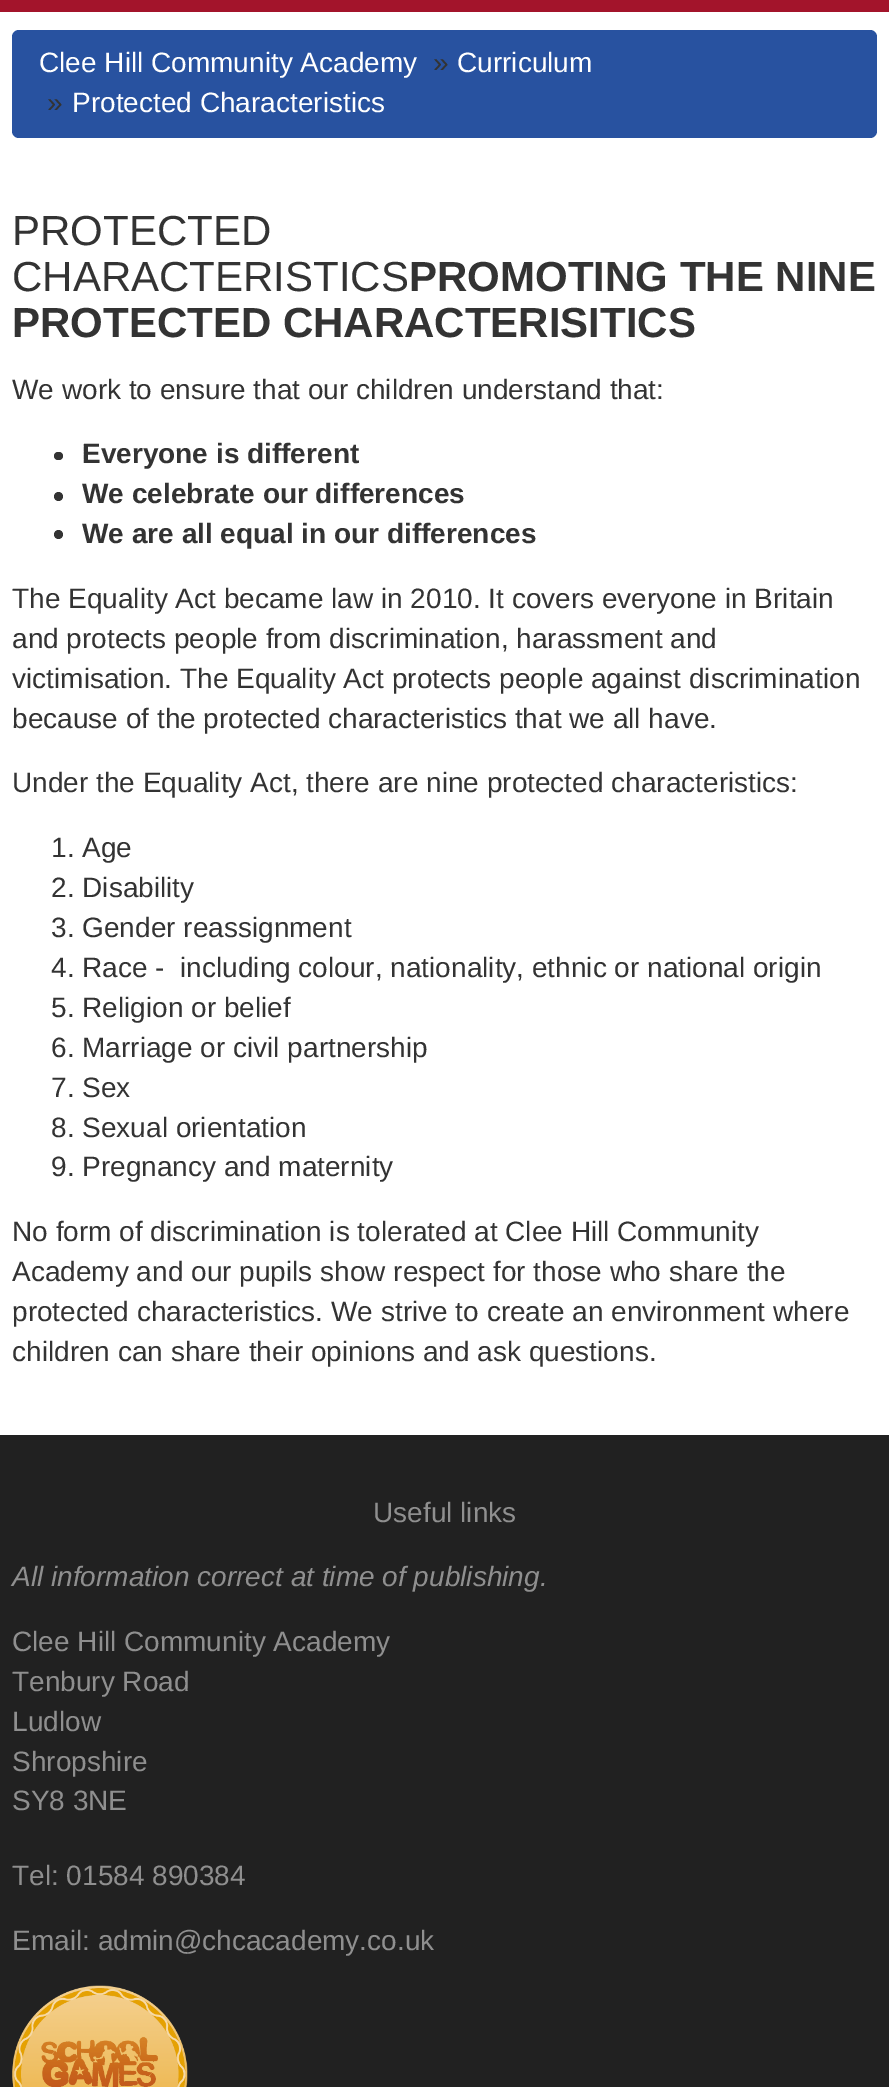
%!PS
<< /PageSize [889 2087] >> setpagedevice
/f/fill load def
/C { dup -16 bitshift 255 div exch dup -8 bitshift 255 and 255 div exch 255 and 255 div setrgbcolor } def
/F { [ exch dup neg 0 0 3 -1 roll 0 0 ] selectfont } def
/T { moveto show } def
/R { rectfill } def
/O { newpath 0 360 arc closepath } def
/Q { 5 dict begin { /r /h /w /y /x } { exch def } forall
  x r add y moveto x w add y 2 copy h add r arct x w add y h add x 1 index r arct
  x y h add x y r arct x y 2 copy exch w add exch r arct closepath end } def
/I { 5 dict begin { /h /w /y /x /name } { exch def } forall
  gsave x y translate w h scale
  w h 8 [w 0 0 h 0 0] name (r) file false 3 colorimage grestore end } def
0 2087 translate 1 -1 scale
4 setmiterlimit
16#FFFFFF C
0 0 889 2087 R
16#A3142B C
0 0 889 12 R
16#2852A0 C
12 30 865 108 7 Q f
/LiberationSans-Regular 28 F
16#FFFFFF C
(Clee Hill Community Academy) 39 72 T
16#333333 C
(») 433 72 T
16#FFFFFF C
(Curriculum) 457 72 T
16#333333 C
(») 47 112 T
16#FFFFFF C
(Protected Characteristics) 72 112 T
/LiberationSans-Regular 42 F
16#333333 C
(PROTECTED) 12 245 T
(CHARACTERISTICS) 12 291 T
/LiberationSans-Bold 42 F
(PROMOTING THE NINE) 409 291 T
(PROTECTED CHARACTERISITICS) 12 337 T
/LiberationSans-Regular 28 F
(We work to ensure that our children understand that:) 12 399 T
54 452 9 8 4 Q f
/LiberationSans-Bold 28 F
(Everyone is different) 82 463 T
58.5 496.5 4.5 O f
(We celebrate our differences) 82 503 T
58.5 534.5 4.5 O f
(We are all equal in our differences) 82 543 T
/LiberationSans-Regular 28 F
(The Equality Act became law in 2010. It covers everyone in Britain) 12 608 T
(and protects people from discrimination, harassment and) 12 648 T
(victimisation. The Equality Act protects people against discrimination) 12 688 T
(because of the protected characteristics that we all have.) 12 728 T
(Under the Equality Act, there are nine protected characteristics:) 12 792 T
(1. Age) 51 857 T
(2. Disability) 51 897 T
(3. Gender reassignment) 51 937 T
(4. Race -  including colour, nationality, ethnic or national origin) 51 977 T
(5. Religion or belief) 51 1017 T
(6. Marriage or civil partnership) 51 1057 T
(7. Sex) 51 1097 T
(8. Sexual orientation) 51 1137 T
(9. Pregnancy and maternity) 51 1176 T
(No form of discrimination is tolerated at Clee Hill Community) 12 1241 T
(Academy and our pupils show respect for those who share the) 12 1281 T
(protected characteristics. We strive to create an environment where) 12 1321 T
(children can share their opinions and ask questions.) 12 1361 T
16#212121 C
0 1435 889 652 R
16#8F8F8F C
(Useful links) 373 1522 T
/LiberationSans-Italic 28 F
(All information correct at time of publishing.) 12 1586 T
/LiberationSans-Regular 28 F
(Clee Hill Community Academy) 12 1651 T
(Tenbury Road) 12 1691 T
(Ludlow) 12 1731 T
(Shropshire) 12 1771 T
(SY8 3NE) 12 1810 T
(Tel: 01584 890384) 12 1885 T
(Email: admin@chcacademy.co.uk) 12 1950 T
(1.rgb) 12 1985 176 102 I
showpage
